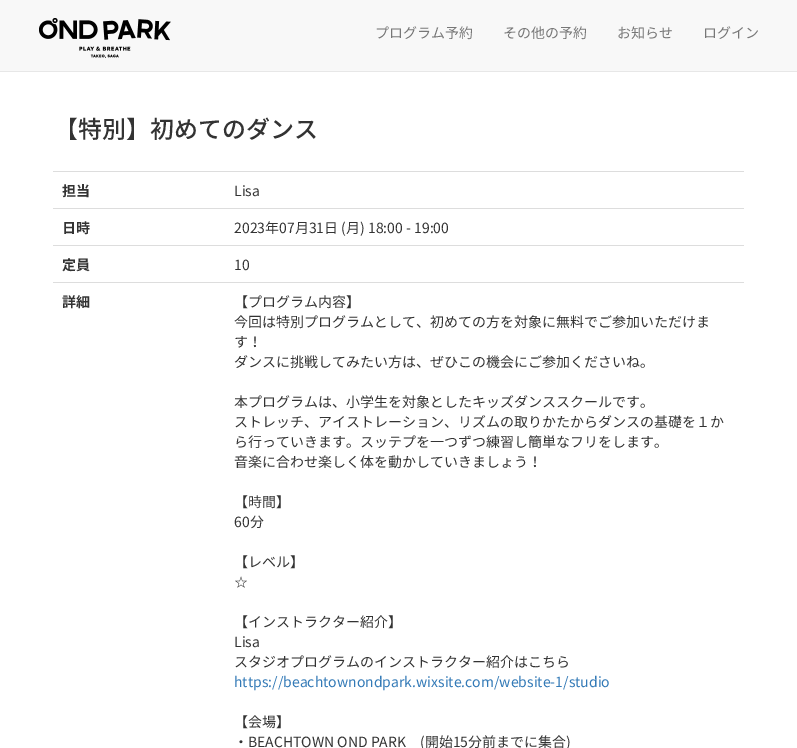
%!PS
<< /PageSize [797 748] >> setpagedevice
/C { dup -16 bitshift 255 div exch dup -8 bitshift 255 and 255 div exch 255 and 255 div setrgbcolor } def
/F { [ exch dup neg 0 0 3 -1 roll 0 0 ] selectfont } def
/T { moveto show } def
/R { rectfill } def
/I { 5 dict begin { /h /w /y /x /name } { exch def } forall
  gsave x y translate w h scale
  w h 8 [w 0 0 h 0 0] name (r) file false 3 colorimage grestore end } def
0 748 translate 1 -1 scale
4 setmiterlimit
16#FFFFFF C
0 0 797 748 R
16#F8F8F8 C
0 0 797 71 R
16#E7E7E7 C
0 71 797 1 R
(1.rgb) 39 18 132 40 I
/NotoSansJP-Regular 14 F
16#777777 C
(プログラム予約) 375 38 T
(その他の予約) 503 38 T
(お知らせ) 617 38 T
(ログイン) 703 38 T
/NotoSansJP-Medium 24 F
16#333333 C
(【特別】初めてのダンス) 54 138 T
/NotoSansJP-Bold 14 F
(担当) 62 196 T
16#DDDDDD C
53 171 691 1 R
/NotoSansJP-Regular 14 F
16#333333 C
(Lisa) 234 196 T
/NotoSansJP-Bold 14 F
(日時) 62 233 T
16#DDDDDD C
53 208 691 1 R
/NotoSansJP-Regular 14 F
16#333333 C
(2023年07月31日 \(月\) 18:00 - 19:00) 234 233 T
/NotoSansJP-Bold 14 F
(定員) 62 270 T
16#DDDDDD C
53 245 691 1 R
/NotoSansJP-Regular 14 F
16#333333 C
(10) 234 270 T
/NotoSansJP-Bold 14 F
(詳細) 62 307 T
16#DDDDDD C
53 282 691 1 R
/NotoSansJP-Regular 14 F
16#333333 C
(【プログラム内容】) 234 307 T
(今回は特別プログラムとして、初めての方を対象に無料でご参加いただけま) 234 327 T
(す！) 234 347 T
(ダンスに挑戦してみたい方は、ぜひこの機会にご参加くださいね。) 234 367 T
(本プログラムは、小学生を対象としたキッズダンススクールです。) 234 407 T
(ストレッチ、アイストレーション、リズムの取りかたからダンスの基礎を１か) 234 427 T
(ら行っていきます。スッテプを一つずつ練習し簡単なフリをします。) 234 447 T
(音楽に合わせ楽しく体を動かしていきましょう！) 234 467 T
(【時間】) 234 507 T
(60分) 234 527 T
(【レベル】) 234 567 T
/WenQuanYiZenHei-Medium 14 F
(☆) 234 587 T
/NotoSansJP-Regular 14 F
(【インストラクター紹介】) 234 627 T
(Lisa) 234 647 T
(スタジオプログラムのインストラクター紹介はこちら) 234 667 T
16#337AB7 C
(https://beachtownondpark.wixsite.com/website-1/studio) 234 687 T
16#333333 C
(【会場】) 234 727 T
(・BEACHTOWN OND PARK　\(開始15分前までに集合\)) 234 747 T
showpage
